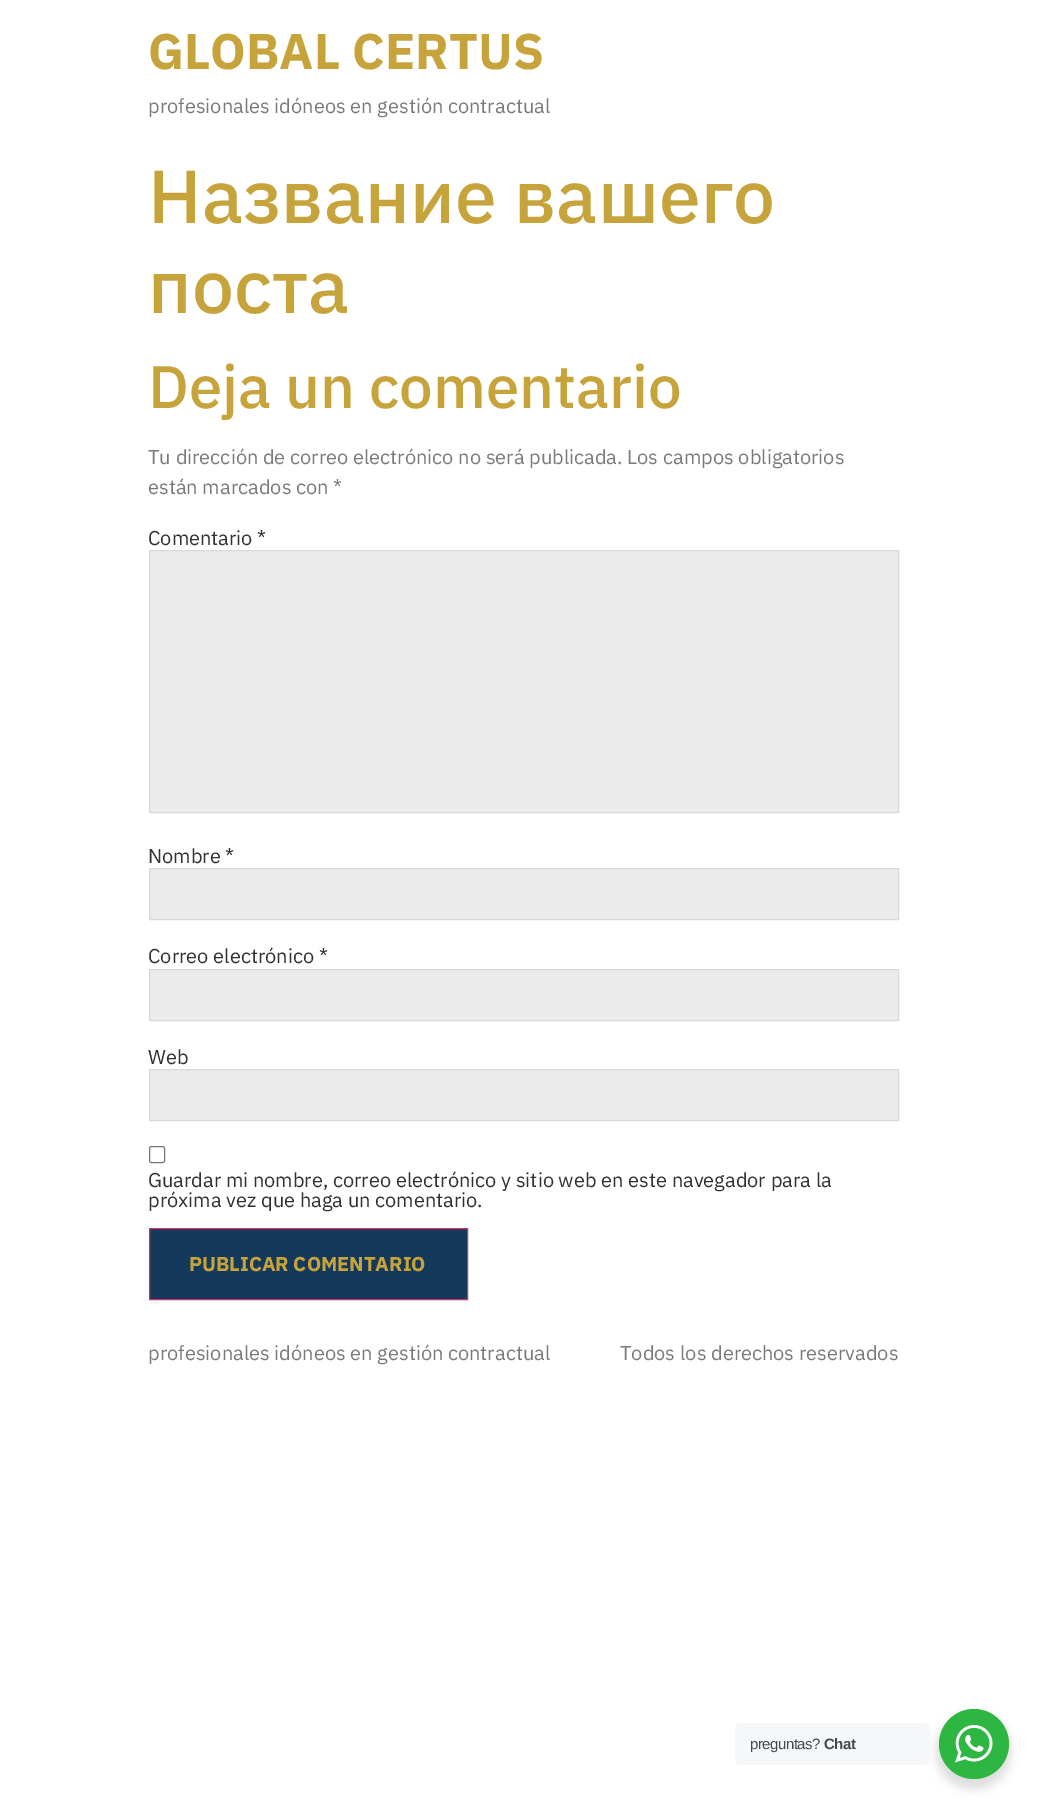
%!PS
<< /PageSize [1046 1816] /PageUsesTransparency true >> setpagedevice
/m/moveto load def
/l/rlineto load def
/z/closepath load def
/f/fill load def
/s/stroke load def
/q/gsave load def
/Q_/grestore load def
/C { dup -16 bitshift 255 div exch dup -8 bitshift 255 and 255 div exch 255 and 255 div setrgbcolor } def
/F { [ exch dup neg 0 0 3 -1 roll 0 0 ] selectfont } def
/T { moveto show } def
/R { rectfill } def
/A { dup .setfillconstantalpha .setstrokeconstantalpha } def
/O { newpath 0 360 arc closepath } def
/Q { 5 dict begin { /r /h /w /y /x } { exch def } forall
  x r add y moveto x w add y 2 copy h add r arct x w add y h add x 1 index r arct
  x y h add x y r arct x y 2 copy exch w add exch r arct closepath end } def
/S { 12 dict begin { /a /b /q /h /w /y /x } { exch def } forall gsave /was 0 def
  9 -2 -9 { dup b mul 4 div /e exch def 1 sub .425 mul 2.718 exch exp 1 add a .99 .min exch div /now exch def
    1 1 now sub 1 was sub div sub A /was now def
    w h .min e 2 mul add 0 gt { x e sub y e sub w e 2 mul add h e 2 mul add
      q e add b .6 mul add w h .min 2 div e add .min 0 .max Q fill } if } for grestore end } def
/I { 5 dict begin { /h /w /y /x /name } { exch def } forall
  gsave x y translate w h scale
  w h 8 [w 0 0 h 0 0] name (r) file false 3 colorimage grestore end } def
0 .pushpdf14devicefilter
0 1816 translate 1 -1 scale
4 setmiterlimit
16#FFFFFF C
0 0 1046 1816 R
/IBMPlexSans-Bold 50 F
16#C7A43B C
(GLOBAL CERTUS) 148 69 T
/IBMPlexSans-Regular 20 F
16#7A7A7A C
(profesionales idóneos en gestión contractual) 148 113 T
/IBMPlexSans-Medium 75 F
16#C7A43B C
(Название вашего) 148 223 T
(поста) 148 313 T
/IBMPlexSans-Medium 60 F
(Deja un comentario) 148 408 T
/IBMPlexSans-Regular 20 F
16#7A7A7A C
(Tu dirección de correo electrónico no será publicada. Los campos obligatorios) 148 464 T
(están marcados con *) 148 494 T
16#313131 C
(Comentario *) 148 545 T
16#EBEBEB C
149.5 550.5 m 749 0 l 0 262 l -749 0 l z q f Q_
16#D9D9D9 C
s
16#313131 C
(Nombre *) 148 863 T
16#EBEBEB C
149.5 868.5 m 749 0 l 0 51 l -749 0 l z q f Q_
16#D9D9D9 C
s
16#313131 C
(Correo electrónico *) 148 963 T
16#EBEBEB C
149.5 969.5 m 749 0 l 0 51 l -749 0 l z q f Q_
16#D9D9D9 C
s
16#313131 C
(Web) 148 1064 T
16#EBEBEB C
149.5 1069.5 m 749 0 l 0 51 l -749 0 l z q f Q_
16#D9D9D9 C
s
16#767676 C
149.5 1146.5 15 16 2 Q s
16#313131 C
(Guardar mi nombre, correo electrónico y sitio web en este navegador para la) 148 1187 T
(próxima vez que haga un comentario.) 148 1207 T
16#15395A C
149.5 1228.5 m 318 0 l 0 71 l -318 0 l z q f Q_
16#CC3366 C
s
/IBMPlexSans-Bold 20 F
16#C7A43B C
(PUBLICAR COMENTARIO) 189 1271 T
/IBMPlexSans-Regular 20 F
16#7A7A7A C
(profesionales idóneos en gestión contractual) 148 1360 T
(Todos los derechos reservados) 620 1360 T
16#000000 C
936 1714 75 75 37.5 5 .14 S
16#F5F7F9 C
735 1723 195 42 5 Q f
/LiberationSans-Regular 15 F
16#43474E C
750 1749 m -.5 0 (preguntas?) ashow
/LiberationSans-Bold 15 F
824 1749 m -.5 0 (Chat) ashow
16#2DB742 C
974 1744 35 O f
(1.rgb) 955 1725 38 38 I
.poppdf14devicefilter showpage
